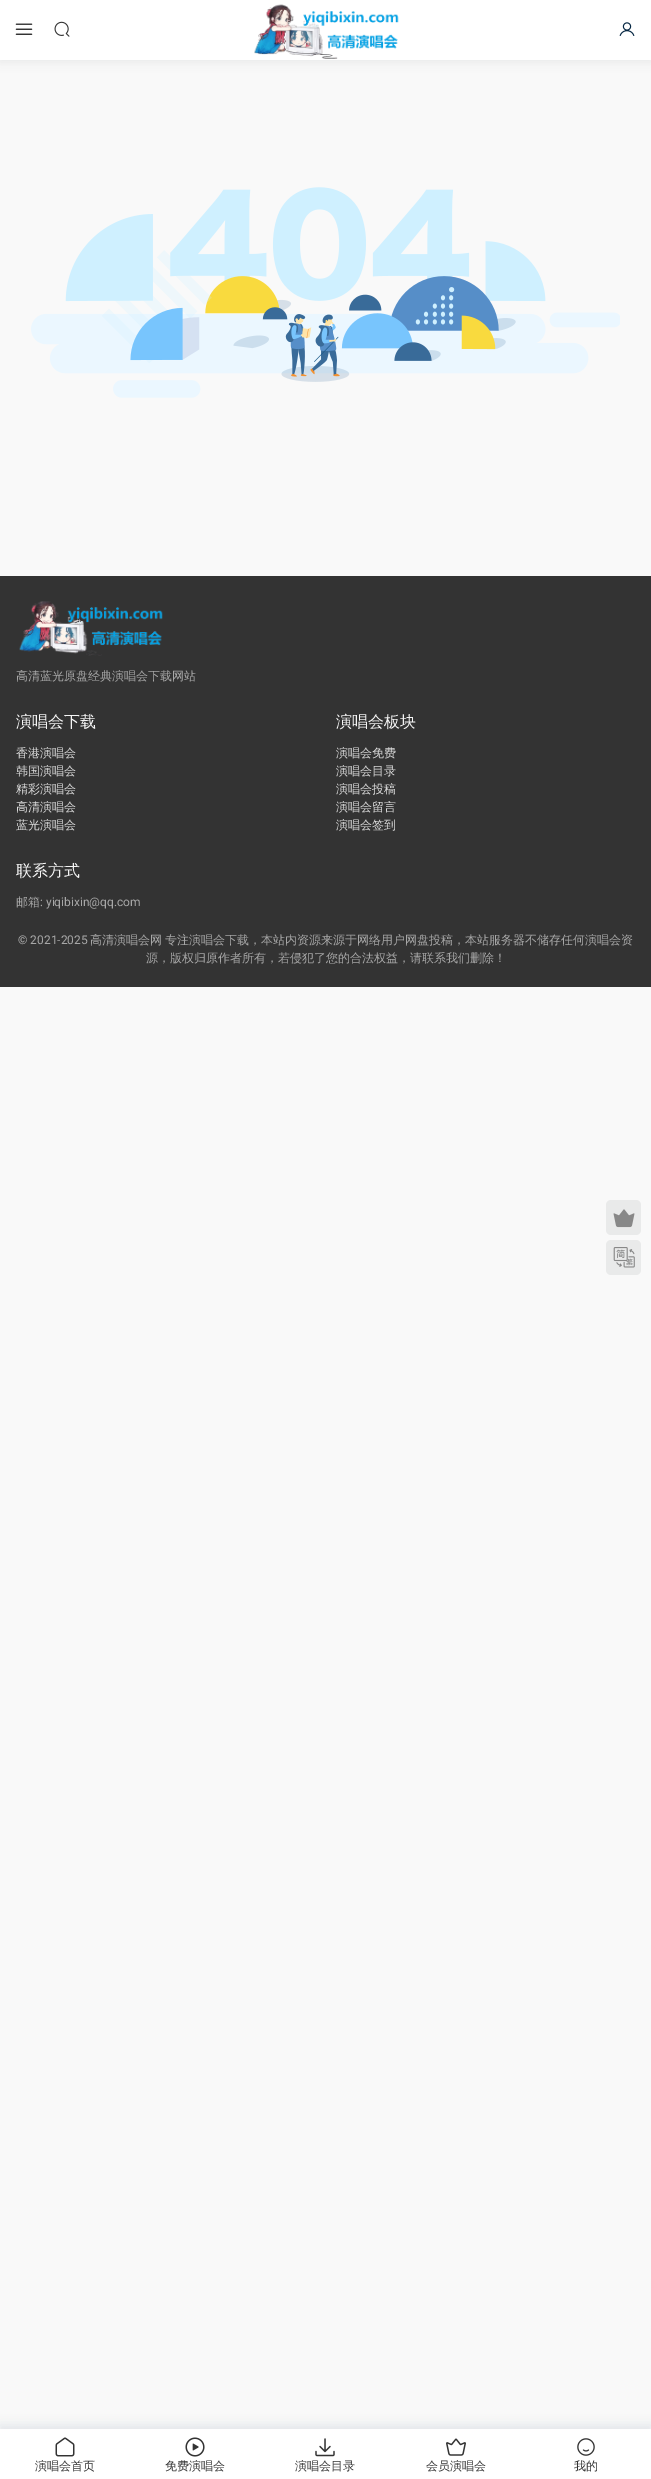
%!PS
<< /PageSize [651 2479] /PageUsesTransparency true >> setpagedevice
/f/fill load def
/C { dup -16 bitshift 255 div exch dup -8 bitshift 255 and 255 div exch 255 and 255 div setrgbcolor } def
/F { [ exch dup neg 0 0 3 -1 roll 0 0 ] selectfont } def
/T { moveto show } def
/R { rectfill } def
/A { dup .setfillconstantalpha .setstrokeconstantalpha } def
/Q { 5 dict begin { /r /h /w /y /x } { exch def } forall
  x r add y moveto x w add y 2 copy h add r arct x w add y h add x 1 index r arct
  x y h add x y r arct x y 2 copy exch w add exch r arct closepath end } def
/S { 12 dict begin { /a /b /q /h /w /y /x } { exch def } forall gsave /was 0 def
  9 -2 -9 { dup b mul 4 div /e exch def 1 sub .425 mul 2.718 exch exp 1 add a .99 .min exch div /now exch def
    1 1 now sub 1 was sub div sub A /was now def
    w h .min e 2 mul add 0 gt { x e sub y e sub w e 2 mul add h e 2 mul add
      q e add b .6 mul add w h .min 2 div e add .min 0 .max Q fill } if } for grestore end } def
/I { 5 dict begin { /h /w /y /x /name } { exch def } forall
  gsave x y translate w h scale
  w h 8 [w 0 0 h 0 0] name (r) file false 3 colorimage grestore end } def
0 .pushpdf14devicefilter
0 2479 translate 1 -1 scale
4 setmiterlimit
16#F9F9F9 C
0 0 651 2479 R
16#4E5254 C
0 2 651 60 0 5 .1 S
16#FFFFFF C
0 0 651 60 R
(1.rgb) 15 23 18 12 I
(2.rgb) 54 21 16 16 I
(3.rgb) 254 4 145 55 I
(4.rgb) 619 22 16 14 I
(5.rgb) 31 187 589 211 I
16#333333 C
0 576 651 411 R
(6.rgb) 19 601 144 55 I
/WenQuanYiZenHei-Medium 12 F
16#A7A7A7 C
(高清蓝光原盘经典演唱会下载网站) 16 680 T
/WenQuanYiZenHei-Medium 16 F
16#F5F5F5 C
(演唱会下载) 16 727 T
/WenQuanYiZenHei-Medium 12 F
16#DCDCDC C
(香港演唱会) 16 757 T
(韩国演唱会) 16 775 T
(精彩演唱会) 16 793 T
(高清演唱会) 16 811 T
(蓝光演唱会) 16 829 T
/WenQuanYiZenHei-Medium 16 F
16#F5F5F5 C
(演唱会板块) 336 727 T
/WenQuanYiZenHei-Medium 12 F
16#DCDCDC C
(演唱会免费) 336 757 T
(演唱会目录) 336 775 T
(演唱会投稿) 336 793 T
(演唱会留言) 336 811 T
(演唱会签到) 336 829 T
/WenQuanYiZenHei-Medium 16 F
16#F5F5F5 C
(联系方式) 16 876 T
/WenQuanYiZenHei-Medium 12 F
16#A7A7A7 C
(邮箱) 16 906 T
/Roboto-Regular 12 F
(: yiqibixin@qq.com) 40 906 T
(© 2021-2025) 18 944 T
/WenQuanYiZenHei-Medium 12 F
(高清演唱会网) 90 944 T
(专注演唱会下载，本站内资源来源于网络用户网盘投稿，本站服务器不储存任何演唱会资) 165 944 T
(源，版权归原作者所有，若侵犯了您的合法权益，请联系我们删除！) 146 962 T
16#E9EAEA C
606 1200 35 35 5 Q f
(7.rgb) 613 1209 22 19 I
606 1240 35 35 5 Q f
(8.rgb) 613 1247 22 21 I
16#113A5D C
0 2425 651 50 0 5 .1 S
16#FFFFFF C
0 2429 651 50 R
(9.rgb) 55 2437 20 20 I
16#333333 C
(演唱会首页) 35 2470 T
(10.rgb) 185 2437 20 20 I
(免费演唱会) 165 2470 T
(11.rgb) 315 2438 20 19 I
(演唱会目录) 295 2470 T
(12.rgb) 446 2438 20 18 I
(会员演唱会) 426 2470 T
(13.rgb) 577 2438 18 18 I
(我的) 574 2470 T
.poppdf14devicefilter showpage
